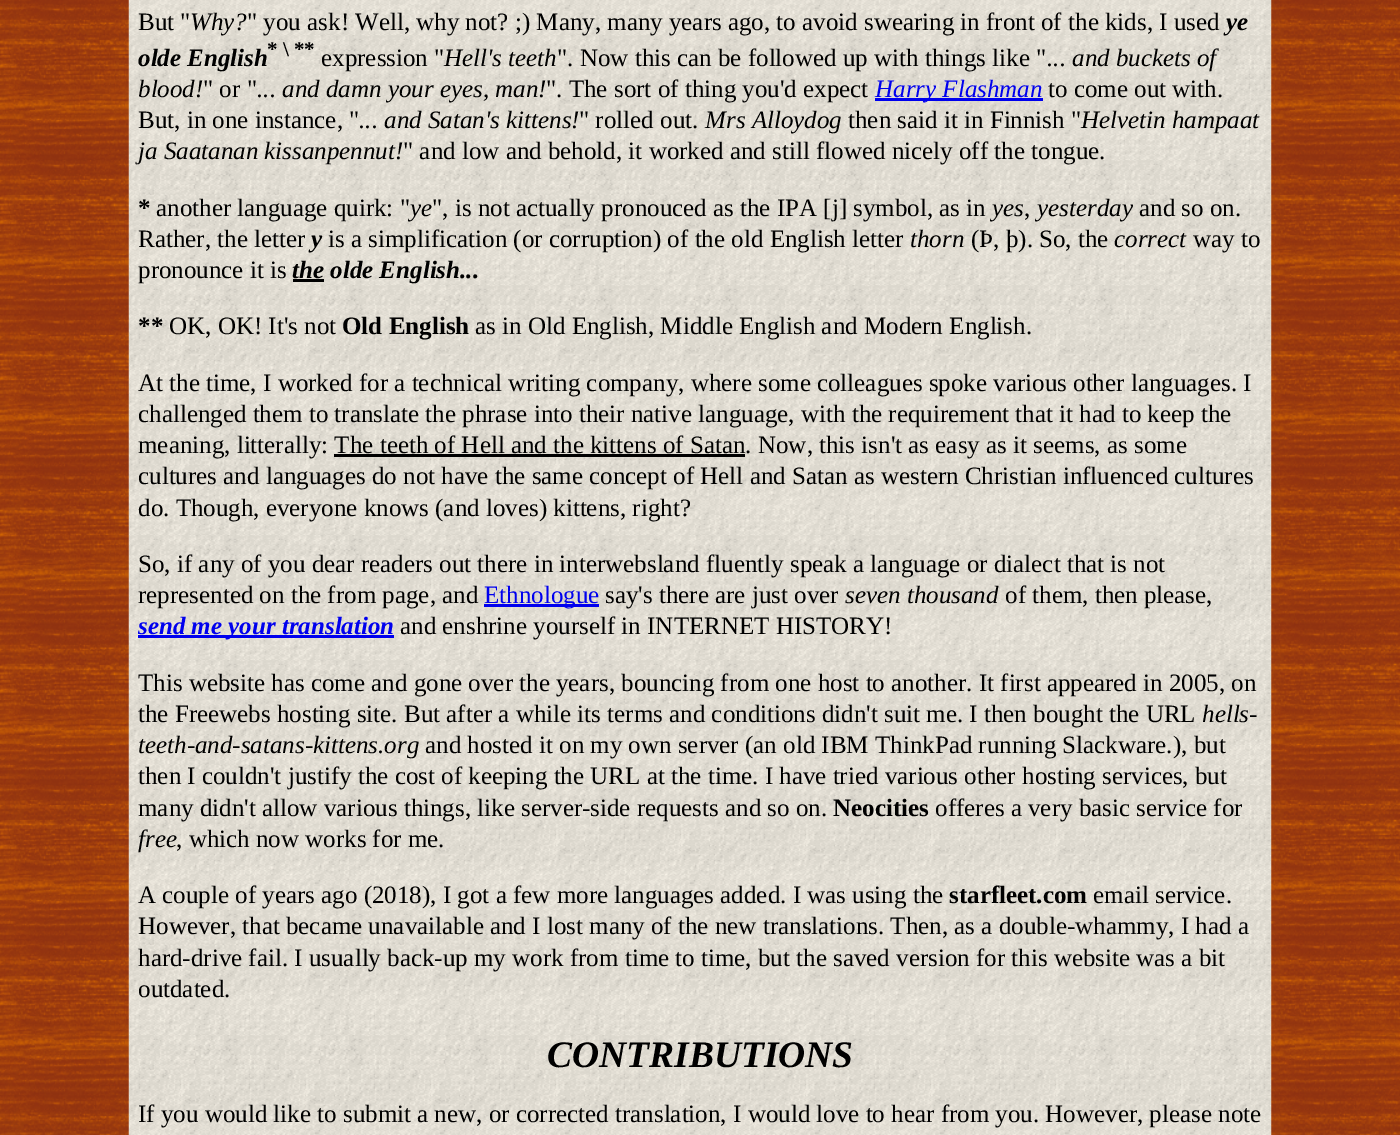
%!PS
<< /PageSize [1400 1135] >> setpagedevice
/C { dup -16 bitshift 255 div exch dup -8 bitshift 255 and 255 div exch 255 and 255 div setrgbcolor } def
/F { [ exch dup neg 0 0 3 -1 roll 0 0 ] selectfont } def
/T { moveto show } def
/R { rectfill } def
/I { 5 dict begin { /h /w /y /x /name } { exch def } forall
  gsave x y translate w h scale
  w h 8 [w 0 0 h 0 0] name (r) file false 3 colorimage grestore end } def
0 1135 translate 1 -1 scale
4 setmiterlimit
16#FFFFFF C
0 0 1400 1135 R
(1.rgb) 0 0 1400 1135 I
(2.rgb) 128 0 1144 1135 I
/LiberationSerif-Regular 25 F
16#000000 C
(But ") 138 30 T
/LiberationSerif-Italic 25 F
(Why?) 190 30 T
/LiberationSerif-Regular 25 F
(" you ask! Well, why not? ;\) Many, many years ago, to avoid swearing in front of the kids, I used) 247 30 T
/LiberationSerif-BoldItalic 25 F
(ye) 1226 30 T
(olde English) 138 66 T
/LiberationSerif-Bold 21 F
(* \\ **) 267 56 T
/LiberationSerif-Regular 25 F
(expression ") 321 66 T
/LiberationSerif-Italic 25 F
(Hell's teeth) 444 66 T
/LiberationSerif-Regular 25 F
(". Now this can be followed up with things like ") 557 66 T
/LiberationSerif-Italic 25 F
(... and buckets of) 1047 66 T
(blood!) 138 97 T
/LiberationSerif-Regular 25 F
(" or ") 203 97 T
/LiberationSerif-Italic 25 F
(... and damn your eyes, man!) 257 97 T
/LiberationSerif-Regular 25 F
(". The sort of thing you'd expect) 546 97 T
16#0000EE C
875 98 168 3 R
/LiberationSerif-Italic 25 F
(Harry Flashman) 875 97 T
/LiberationSerif-Regular 25 F
16#000000 C
(to come out with.) 1048 97 T
(But, in one instance, ") 138 128 T
/LiberationSerif-Italic 25 F
(... and Satan's kittens!) 359 128 T
/LiberationSerif-Regular 25 F
(" rolled out.) 579 128 T
/LiberationSerif-Italic 25 F
(Mrs Alloydog) 705 128 T
/LiberationSerif-Regular 25 F
(then said it in Finnish ") 848 128 T
/LiberationSerif-Italic 25 F
(Helvetin hampaat) 1081 128 T
(ja Saatanan kissanpennut!) 138 159 T
/LiberationSerif-Regular 25 F
(" and low and behold, it worked and still flowed nicely off the tongue.) 403 159 T
/LiberationSerif-Bold 25 F
(*) 138 216 T
/LiberationSerif-Regular 25 F
(another language quirk: ") 156 216 T
/LiberationSerif-Italic 25 F
(ye) 410 216 T
/LiberationSerif-Regular 25 F
(", is not actually pronouced as the IPA [j] symbol, as in) 432 216 T
/LiberationSerif-Italic 25 F
(yes) 992 216 T
/LiberationSerif-Regular 25 F
(,) 1024 216 T
/LiberationSerif-Italic 25 F
(yesterday) 1037 216 T
/LiberationSerif-Regular 25 F
(and so on.) 1139 216 T
(Rather, the letter) 138 247 T
/LiberationSerif-BoldItalic 25 F
(y) 311 247 T
/LiberationSerif-Regular 25 F
(is a simplification \(or corruption\) of the old English letter) 328 247 T
/LiberationSerif-Italic 25 F
(thorn) 910 247 T
/LiberationSerif-Regular 25 F
(\(Þ, þ\). So, the) 971 247 T
/LiberationSerif-Italic 25 F
(correct) 1114 247 T
/LiberationSerif-Regular 25 F
(way to) 1193 247 T
(pronounce it is) 138 278 T
293 279 31 3 R
/LiberationSerif-BoldItalic 25 F
(the olde English...) 292 278 T
/LiberationSerif-Bold 25 F
(**) 138 334 T
/LiberationSerif-Regular 25 F
(OK, OK! It's not) 169 334 T
/LiberationSerif-Bold 25 F
(Old English) 342 334 T
/LiberationSerif-Regular 25 F
(as in Old English, Middle English and Modern English.) 475 334 T
(At the time, I worked for a technical writing company, where some colleagues spoke various other languages. I) 138 391 T
(challenged them to translate the phrase into their native language, with the requirement that it had to keep the) 138 422 T
(meaning, litterally: The teeth of Hell and the kittens of Satan. Now, this isn't as easy as it seems, as some) 138 453 T
334 454 411 3 R
(cultures and languages do not have the same concept of Hell and Satan as western Christian influenced cultures) 138 484 T
(do. Though, everyone knows \(and loves\) kittens, right?) 138 516 T
(So, if any of you dear readers out there in interwebsland fluently speak a language or dialect that is not) 138 572 T
(represented on the from page, and) 138 603 T
16#0000EE C
484 604 115 3 R
(Ethnologue) 484 603 T
16#000000 C
(say's there are just over) 605 603 T
/LiberationSerif-Italic 25 F
(seven thousand) 845 603 T
/LiberationSerif-Regular 25 F
(of them, then please,) 1005 603 T
16#0000EE C
138 635 256 3 R
/LiberationSerif-BoldItalic 25 F
(send me your translation) 138 634 T
/LiberationSerif-Regular 25 F
16#000000 C
(and enshrine yourself in INTERNET HISTORY!) 400 634 T
(This website has come and gone over the years, bouncing from one host to another. It first appeared in 2005, on) 138 691 T
(the Freewebs hosting site. But after a while its terms and conditions didn't suit me. I then bought the URL) 138 722 T
/LiberationSerif-Italic 25 F
(hells-) 1202 722 T
(teeth-and-satans-kittens.org) 138 753 T
/LiberationSerif-Regular 25 F
(and hosted it on my own server \(an old IBM ThinkPad running Slackware.\), but) 425 753 T
(then I couldn't justify the cost of keeping the URL at the time. I have tried various other hosting services, but) 138 784 T
(many didn't allow various things, like server-side requests and so on.) 138 816 T
/LiberationSerif-Bold 25 F
(Neocities) 833 816 T
/LiberationSerif-Regular 25 F
(offeres a very basic service for) 935 816 T
/LiberationSerif-Italic 25 F
(free) 138 847 T
/LiberationSerif-Regular 25 F
(, which now works for me.) 176 847 T
(A couple of years ago \(2018\), I got a few more languages added. I was using the) 138 903 T
/LiberationSerif-Bold 25 F
(starfleet.com) 949 903 T
/LiberationSerif-Regular 25 F
(email service.) 1093 903 T
(However, that became unavailable and I lost many of the new translations. Then, as a double-whammy, I had a) 138 934 T
(hard-drive fail. I usually back-up my work from time to time, but the saved version for this website was a bit) 138 966 T
(outdated.) 138 997 T
/LiberationSerif-BoldItalic 37.5 F
(CONTRIBUTIONS) 547 1067 T
/LiberationSerif-Regular 25 F
(If you would like to submit a new, or corrected translation, I would love to hear from you. However, please note) 138 1122 T
showpage
